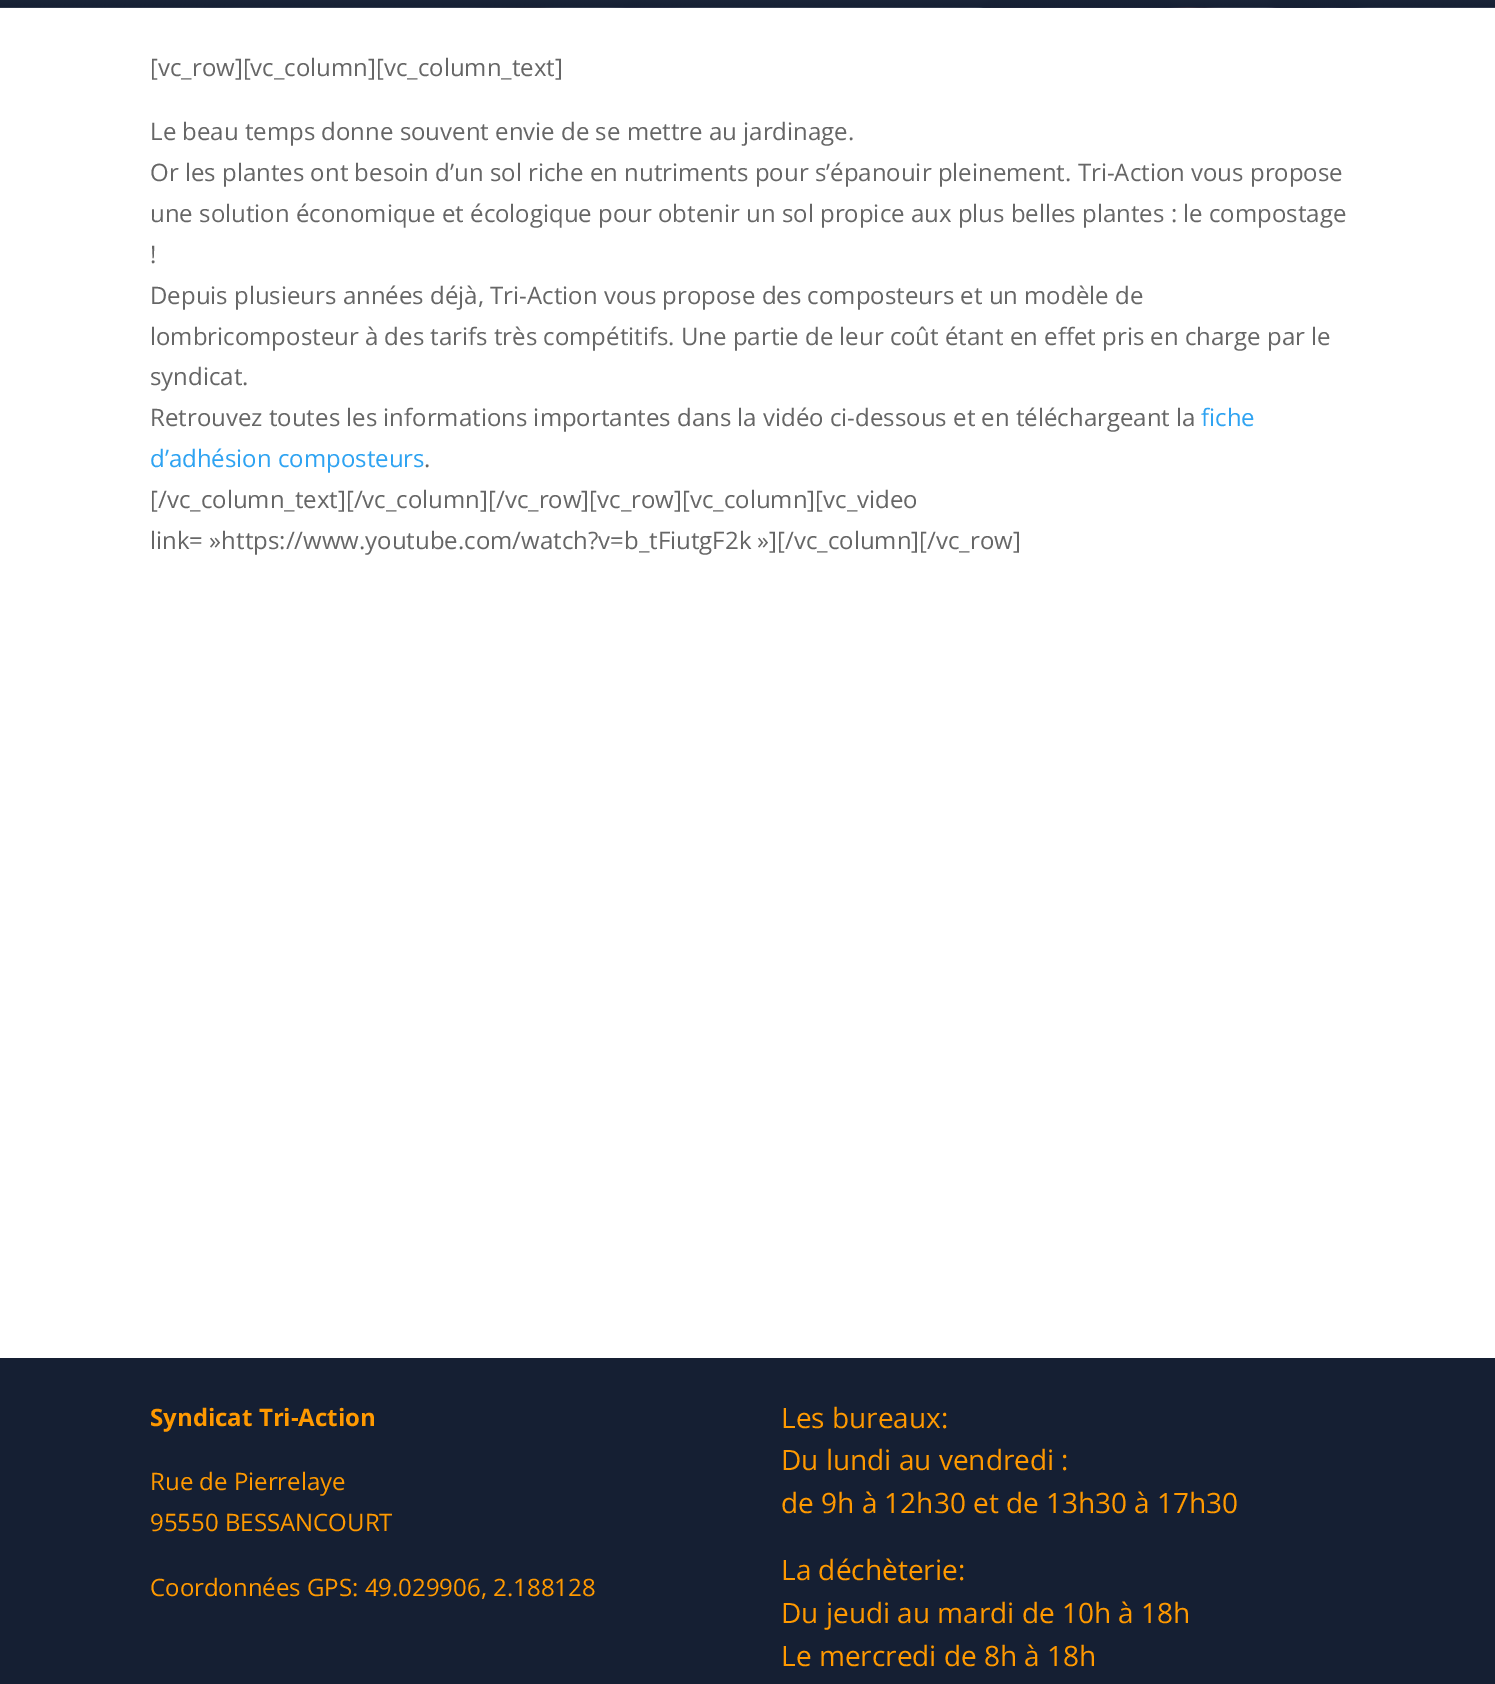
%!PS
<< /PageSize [1495 1684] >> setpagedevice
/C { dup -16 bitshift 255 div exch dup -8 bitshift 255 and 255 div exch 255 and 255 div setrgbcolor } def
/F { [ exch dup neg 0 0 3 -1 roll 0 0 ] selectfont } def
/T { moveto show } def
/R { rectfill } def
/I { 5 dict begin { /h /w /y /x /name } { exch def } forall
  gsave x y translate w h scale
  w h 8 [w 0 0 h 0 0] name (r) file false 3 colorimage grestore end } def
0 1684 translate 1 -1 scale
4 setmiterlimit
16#FFFFFF C
0 0 1495 1684 R
(1.rgb) 0 0 1495 8 I
/OpenSans-Regular 24 F
16#666666 C
([vc_row][vc_column][vc_column_text]) 150 76 T
(Le beau temps donne souvent envie de se mettre au jardinage.) 150 140 T
(Or les plantes ont besoin d’un sol riche en nutriments pour s’épanouir pleinement. Tri-Action vous propose) 150 181 T
(une solution économique et écologique pour obtenir un sol propice aux plus belles plantes : le compostage) 150 222 T
(!) 150 263 T
(Depuis plusieurs années déjà, Tri-Action vous propose des composteurs et un modèle de) 150 304 T
(lombricomposteur à des tarifs très compétitifs. Une partie de leur coût étant en effet pris en charge par le) 150 345 T
(syndicat.) 150 385 T
(Retrouvez toutes les informations importantes dans la vidéo ci-dessous et en téléchargeant la) 150 426 T
16#2EA3F2 C
(fiche) 1201 426 T
(d’adhésion composteurs) 150 467 T
16#666666 C
(.) 424 467 T
([/vc_column_text][/vc_column][/vc_row][vc_row][vc_column][vc_video) 150 508 T
(link= »https://www.youtube.com/watch?v=b_tFiutgF2k »][/vc_column][/vc_row]) 150 549 T
16#151F33 C
0 1358 1495 326 R
/OpenSans-Bold 24 F
16#FF9900 C
(Syndicat Tri-Action) 150 1426 T
/OpenSans-Regular 24 F
(Rue de Pierrelaye) 150 1490 T
(95550 BESSANCOURT) 150 1531 T
(Coordonnées GPS: 49.029906, 2.188128) 150 1596 T
/OpenSans-Regular 28 F
(Les bureaux:) 781 1428 T
(Du lundi au vendredi :) 781 1470 T
(de 9h à 12h30 et de 13h30 à 17h30) 781 1513 T
(La déchèterie:) 781 1580 T
(Du jeudi au mardi de 10h à 18h) 781 1623 T
(Le mercredi de 8h à 18h) 781 1666 T
showpage
